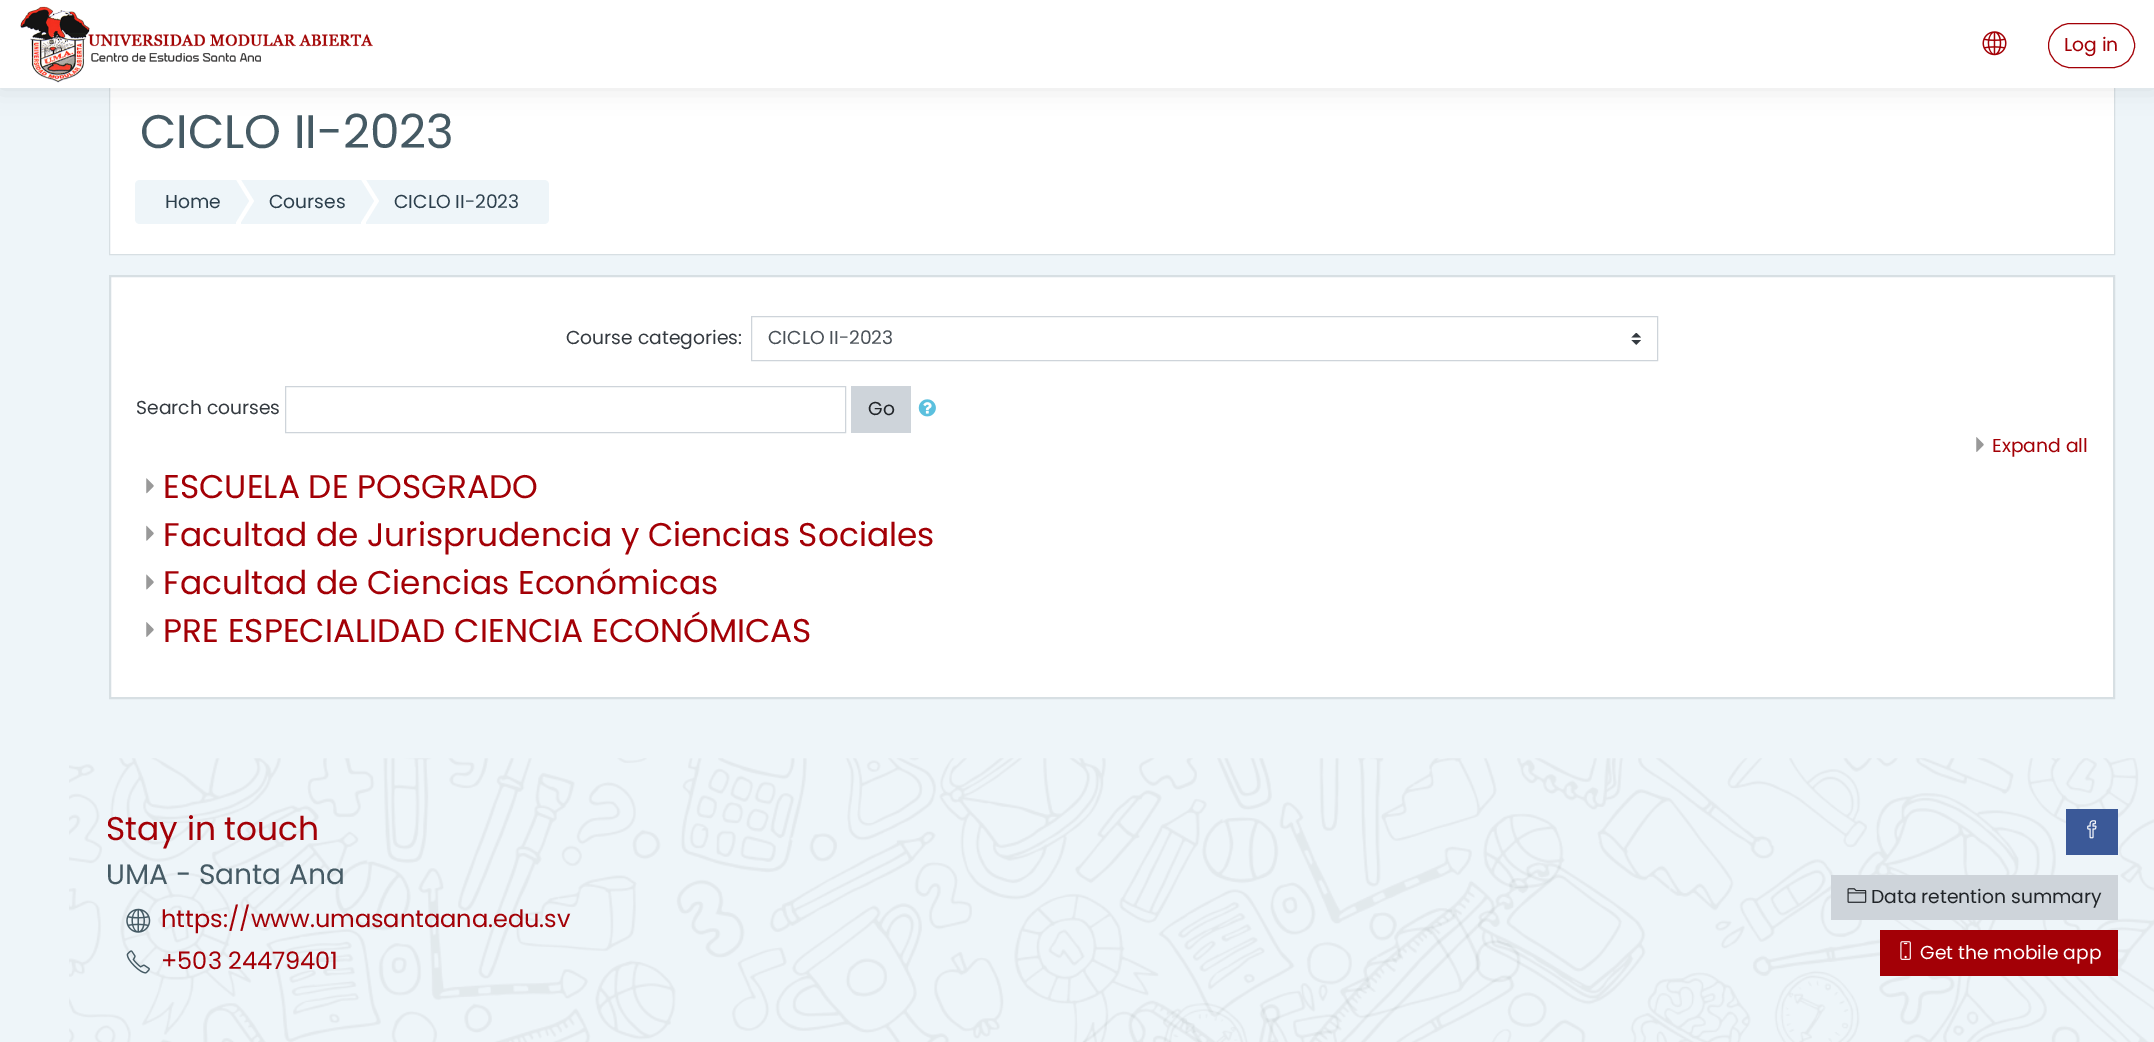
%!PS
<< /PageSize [2154 1042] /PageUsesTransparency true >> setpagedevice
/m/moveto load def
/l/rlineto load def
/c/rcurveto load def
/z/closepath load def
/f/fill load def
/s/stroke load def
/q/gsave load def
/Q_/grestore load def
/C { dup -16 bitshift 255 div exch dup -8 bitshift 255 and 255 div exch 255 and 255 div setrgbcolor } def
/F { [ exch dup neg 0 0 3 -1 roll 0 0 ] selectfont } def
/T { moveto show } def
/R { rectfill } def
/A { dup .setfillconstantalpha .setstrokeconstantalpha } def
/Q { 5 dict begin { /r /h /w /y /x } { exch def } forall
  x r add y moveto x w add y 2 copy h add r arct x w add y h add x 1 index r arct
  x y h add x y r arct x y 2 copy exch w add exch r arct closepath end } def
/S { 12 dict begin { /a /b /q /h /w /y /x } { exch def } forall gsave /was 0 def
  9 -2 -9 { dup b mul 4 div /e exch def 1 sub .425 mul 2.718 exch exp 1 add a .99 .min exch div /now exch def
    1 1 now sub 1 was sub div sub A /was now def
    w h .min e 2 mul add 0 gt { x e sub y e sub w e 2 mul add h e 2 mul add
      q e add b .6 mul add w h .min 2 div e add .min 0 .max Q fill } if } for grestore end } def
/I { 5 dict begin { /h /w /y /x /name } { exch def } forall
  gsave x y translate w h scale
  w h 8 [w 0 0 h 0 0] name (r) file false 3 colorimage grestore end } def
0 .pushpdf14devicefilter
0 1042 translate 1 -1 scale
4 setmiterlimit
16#EEF5F9 C
0 0 2154 1042 R
16#FFFFFF C
110 88 2004 166 R
16#D7DFE3 C
109.5 73.5 2005 181 rectstroke
16#000000 C
0 0 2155 88 0 12.5 .1 S
16#FFFFFF C
0 0 2154 88 R
(1.rgb) 20 6 353 77 I
(2.rgb) 1982 31 25 25 I
16#A30006 C
2048.5 23.5 86 44 22 Q s
/Poppins-Regular 18.75 F
(Log in) 2064 51 T
/Poppins-Regular 47 F
16#455A64 C
(CICLO II-2023) 140 148 T
16#EEF5F9 C
140 180 m 96 0 l 0 44 l -96 0 l -3 0 -5 -2 -5 -5 c 0 -34 l 0 -3 2 -5 5 -5 c z f
/Poppins-Regular 18.75 F
16#2C3F4C C
(Home) 165 208 T
16#EEF5F9 C
241 180 120 44 R
16#FFFFFF C
241 222 m 0 -42 l 13 21 l z f
16#EEF5F9 C
236 222 m 0 -42 l 13 21 l z f
16#2C3F4C C
(Courses) 269 208 T
16#EEF5F9 C
366 180 m 178 0 l 3 0 5 2 5 5 c 0 34 l 0 3 -2 5 -5 5 c -178 0 l z f
16#FFFFFF C
366 222 m 0 -42 l 13 21 l z f
16#EEF5F9 C
361 222 m 0 -42 l 13 21 l z f
16#2C3F4C C
(CICLO II-2023) 394 208 T
16#D7DFE3 C
109.5 275.5 2005 423 rectstroke
16#FFFFFF C
110.5 276.5 m 2003 0 l 0 421 l -2003 0 l z q f Q_
16#D7DFE3 C
s
16#343A40 C
(Course categories:) 566 344 T
(3.rgb) 1631 333 10 12 I
16#CED4DA C
751.5 316.5 906 44 rectstroke
16#495057 C
(CICLO II-2023) 768 344 T
16#343A40 C
(Search courses) 136 414 T
16#CED4DA C
285.5 386.5 560 46 rectstroke
851 386 60 47 R
16#212529 C
(Go) 868 415 T
(4.rgb) 918 399 18 18 I
(5.rgb) 1976 437 8 15 I
16#A30006 C
(Expand all) 1992 452 T
(6.rgb) 146 478 8 16 I
/Poppins-Regular 32.8 F
(ESCUELA DE POSGRADO) 163 498 T
(7.rgb) 146 525 8 16 I
(Facultad de Jurisprudencia y Ciencias Sociales) 163 546 T
(8.rgb) 146 574 8 16 I
(Facultad de Ciencias Económicas) 163 594 T
(5.rgb) 146 622 8 15 I
(PRE ESPECIALIDAD CIENCIA ECONÓMICAS) 163 642 T
(9.rgb) 69 758 2085 284 I
(Stay in touch) 106 840 T
/Poppins-Regular 28.1 F
16#455A64 C
(UMA - Santa Ana) 106 884 T
(10.rgb) 126 908 25 25 I
/Poppins-Regular 24 F
16#A30006 C
(https://www.umasantaana.edu.sv) 161 927 T
(11.rgb) 126 950 24 24 I
(+503 24479401) 161 969 T
16#3B5998 C
2066 809 52 46 R
(12.rgb) 2087 820 10 19 I
16#CED4DA C
1831 875 287 45 R
(13.rgb) 1847 888 20 15 I
/Poppins-Regular 18.75 F
16#212529 C
(Data retention summary) 1871 903 T
16#A30006 C
1880 930 238 46 R
(14.rgb) 1900 941 11 19 I
16#FFFFFF C
(Get the mobile app) 1920 959 T
.poppdf14devicefilter showpage
